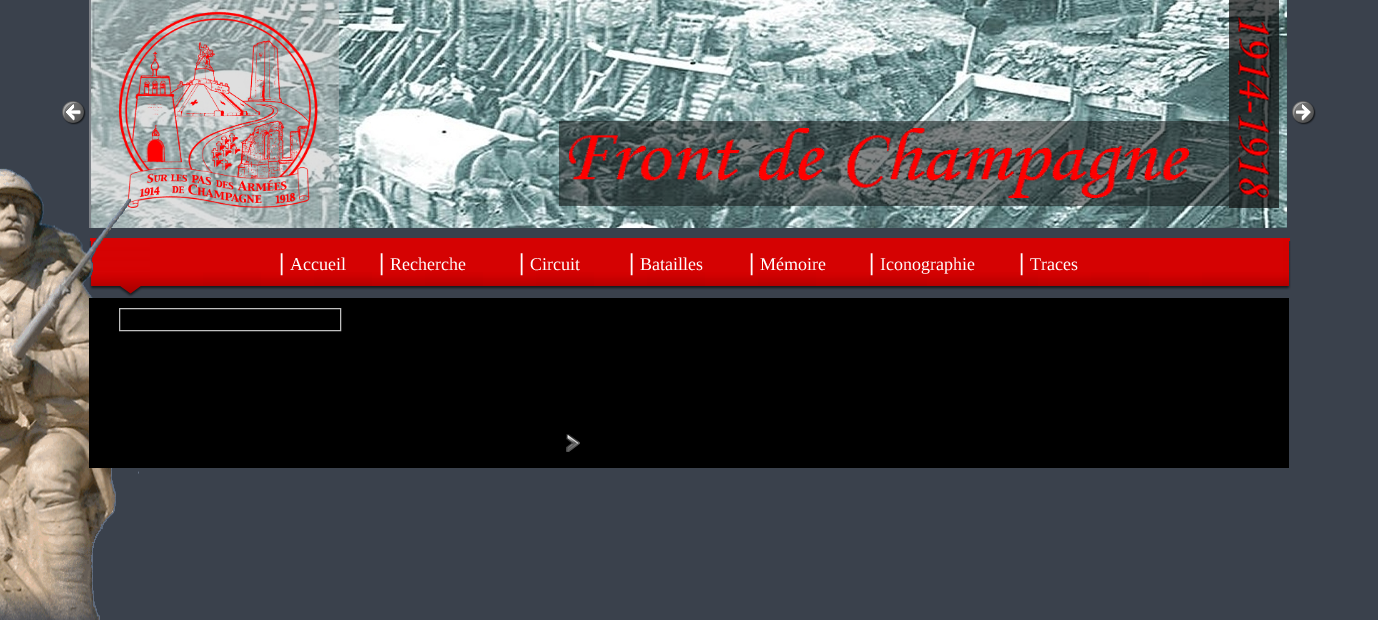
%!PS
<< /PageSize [1378 620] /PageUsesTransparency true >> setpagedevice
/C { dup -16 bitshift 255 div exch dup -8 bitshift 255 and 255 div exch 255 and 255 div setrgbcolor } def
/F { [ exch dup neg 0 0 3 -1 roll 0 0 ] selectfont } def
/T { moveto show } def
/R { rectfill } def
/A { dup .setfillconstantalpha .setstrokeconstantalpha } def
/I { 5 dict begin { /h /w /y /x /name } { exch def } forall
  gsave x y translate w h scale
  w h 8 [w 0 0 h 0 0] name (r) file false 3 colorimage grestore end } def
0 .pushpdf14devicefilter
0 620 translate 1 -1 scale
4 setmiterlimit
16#3A414C C
0 0 1378 620 R
(1.rgb) 62 101 24 24 I
(2.rgb) 91 0 1196 228 I
(3.rgb) 1292 101 24 24 I
0.5 A
16#BFBFBF C
89 0 250 228 R
0.7 A
16#0C0C0C C
1229 0 50 208 R
1 A
(4.rgb) 119 8 210 200 I
0.5 A
559 121 670 85 R
1 A
(5.rgb) 1238 17 32 181 I
16#D60303 C
90 238 60 3 R
(8.rgb) 89 241 61 31 I
(10.rgb) 89 272 61 25 I
(6.rgb) 0 168 139 452 I
(7.rgb) 569 128 620 70 I
16#D50202 C
150 238 1133 34 R
16#D50101 C
1283 238 7 3 R
(9.rgb) 1283 241 8 31 I
(11.rgb) 150 272 1133 18 I
(12.rgb) 1283 272 8 18 I
/LiberationSerif-Bold 24 F
16#FFFFFF C
(|) 279 270 T
/LiberationSerif-Regular 18 F
(Accueil) 290 270 T
/LiberationSerif-Bold 24 F
(|) 379 270 T
/LiberationSerif-Regular 18 F
(Recherche) 390 270 T
/LiberationSerif-Bold 24 F
(|) 519 270 T
/LiberationSerif-Regular 18 F
(Circuit) 530 270 T
/LiberationSerif-Bold 24 F
(|) 629 270 T
/LiberationSerif-Regular 18 F
(Batailles) 640 270 T
/LiberationSerif-Bold 24 F
(|) 749 270 T
/LiberationSerif-Regular 18 F
(Mémoire) 760 270 T
/LiberationSerif-Bold 24 F
(|) 869 270 T
/LiberationSerif-Regular 18 F
(Iconographie) 880 270 T
/LiberationSerif-Bold 24 F
(|) 1019 270 T
/LiberationSerif-Regular 18 F
(Traces) 1030 270 T
16#000000 C
89 298 1200 170 R
16#C0C0C0 C
119.5 308.5 221 22 rectstroke
(13.rgb) 566 434 14 18 I
.poppdf14devicefilter showpage
